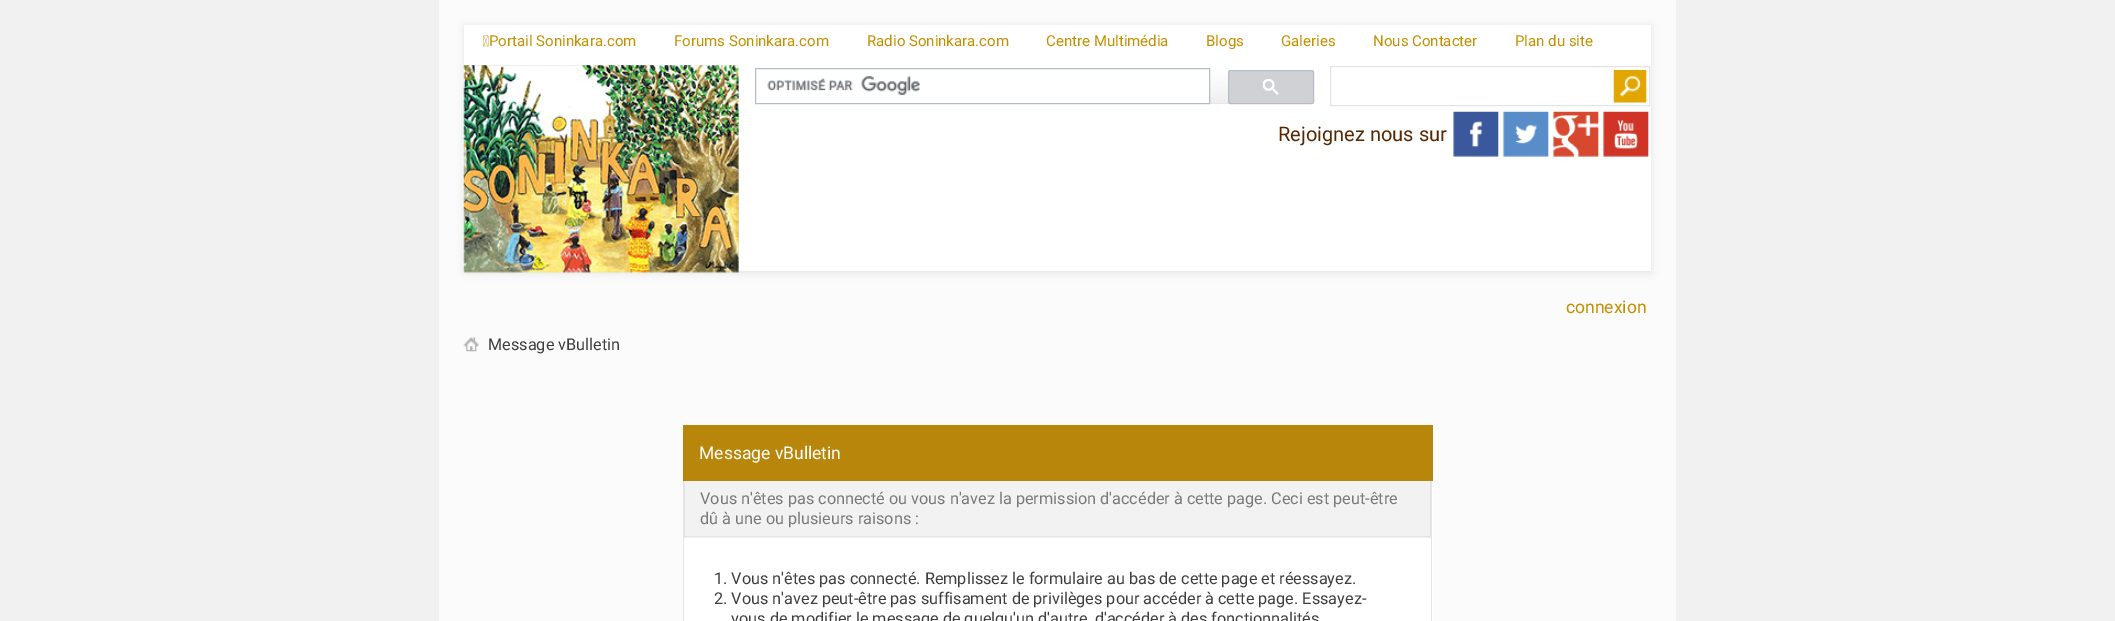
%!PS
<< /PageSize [2115 621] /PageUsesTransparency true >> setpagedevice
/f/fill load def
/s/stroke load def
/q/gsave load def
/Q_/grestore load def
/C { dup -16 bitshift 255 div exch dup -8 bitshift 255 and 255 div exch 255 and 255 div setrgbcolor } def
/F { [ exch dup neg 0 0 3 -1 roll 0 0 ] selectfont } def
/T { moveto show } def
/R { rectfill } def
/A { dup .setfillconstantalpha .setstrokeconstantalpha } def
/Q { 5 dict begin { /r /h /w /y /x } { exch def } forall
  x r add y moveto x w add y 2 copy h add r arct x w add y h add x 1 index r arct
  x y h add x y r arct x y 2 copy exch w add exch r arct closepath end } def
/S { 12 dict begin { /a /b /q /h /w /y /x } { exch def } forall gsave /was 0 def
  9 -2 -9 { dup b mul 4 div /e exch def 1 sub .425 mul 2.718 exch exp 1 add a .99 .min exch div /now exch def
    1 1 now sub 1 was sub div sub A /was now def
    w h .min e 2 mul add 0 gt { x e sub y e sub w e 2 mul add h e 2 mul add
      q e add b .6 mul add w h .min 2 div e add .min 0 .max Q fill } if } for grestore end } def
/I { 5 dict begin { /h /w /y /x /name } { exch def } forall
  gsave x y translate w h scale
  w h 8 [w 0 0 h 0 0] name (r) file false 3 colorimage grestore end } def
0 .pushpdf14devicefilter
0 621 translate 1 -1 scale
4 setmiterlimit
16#F1F1F1 C
0 0 2115 621 R
16#FBFBFB C
439 0 1237 621 R
16#325A5A C
464 26 1187 247 0 4 .12 S
16#FFFFFF C
464 25 1187 246 R
(1.rgb) 483 35 6 12 I
/Roboto-Regular 15 F
16#C48F00 C
(Portail Soninkara.com) 489 46 T
(Forums Soninkara.com) 674 46 T
(Radio Soninkara.com) 867 46 T
(Centre Multimédia) 1046 46 T
(Blogs) 1206 46 T
(Galeries) 1281 46 T
(Nous Contacter) 1373 46 T
(Plan du site) 1515 46 T
(2.rgb) 463 65 276 208 I
16#D8D8D8 C
1210 68 104 36 R
(3.rgb) 1210 68 104 36 I
16#B6BEC5 C
755.5 68.5 454 35 rectstroke
(4.rgb) 767 76 153 19 I
16#D0D1D4 C
1228.5 70.5 85 33 2 Q q f Q_
16#B6BEC5 C
s
(5.rgb) 1263 79 16 16 I
16#E4E4E4 C
1330.5 66.5 319 39 rectstroke
(6.rgb) 1613 70 34 33 I
/Roboto-Regular 20 F
16#582900 C
(Rejoignez nous sur) 1278 141 T
(7.rgb) 1453 111 47 46 I
(8.rgb) 1503 111 46 46 I
(9.rgb) 1553 111 47 46 I
(10.rgb) 1603 111 47 46 I
/Roboto-Regular 17.5 F
16#C48F00 C
(connexion) 1566 313 T
(11.rgb) 463 337 16 15 I
/Roboto-Regular 16.25 F
16#3E3E3E C
(Message vBulletin) 488 350 T
16#B8860B C
683 425 750 56 R
/Roboto-Regular 17.5 F
16#FFFFFF C
(Message vBulletin) 699 459 T
684 481 749 140 R
16#E4E4E4 C
1431 481 1 140 R
683 481 1 140 R
16#F2F2F2 C
685 481 745 57 R
16#E4E4E4 C
1430 481 1 57 R
684 536 747 1 R
684 481 1 57 R
/Roboto-Regular 16.25 F
16#797979 C
(Vous n'êtes pas connecté ou vous n'avez la permission d'accéder à cette page. Ceci est peut-être) 700 504 T
(dû à une ou plusieurs raisons :) 700 524 T
16#3E3E3E C
(1. Vous n'êtes pas connecté. Remplissez le formulaire au bas de cette page et réessayez.) 714 584 T
(2. Vous n'avez peut-être pas suffisament de privilèges pour accéder à cette page. Essayez-) 714 604 T
(vous de modifier le message de quelqu'un d'autre, d'accéder à des fonctionnalités) 731 624 T
.poppdf14devicefilter showpage
